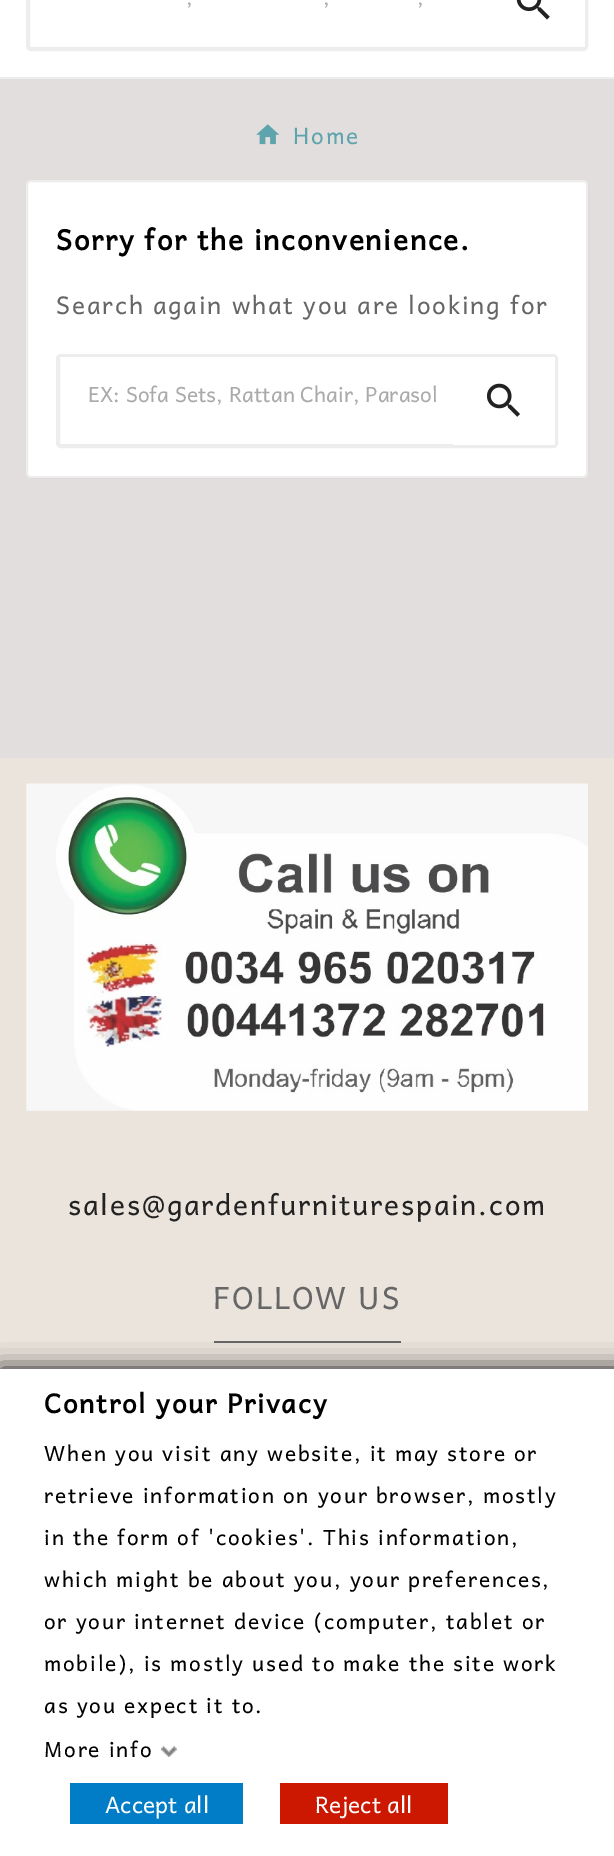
%!PS
<< /PageSize [614 1856] /PageUsesTransparency true >> setpagedevice
/m/moveto load def
/f/fill load def
/s/stroke load def
/w/setlinewidth load def
/C { dup -16 bitshift 255 div exch dup -8 bitshift 255 and 255 div exch 255 and 255 div setrgbcolor } def
/F { [ exch dup neg 0 0 3 -1 roll 0 0 ] selectfont } def
/T { moveto show } def
/R { rectfill } def
/A { dup .setfillconstantalpha .setstrokeconstantalpha } def
/Q { 5 dict begin { /r /h /w /y /x } { exch def } forall
  x r add y moveto x w add y 2 copy h add r arct x w add y h add x 1 index r arct
  x y h add x y r arct x y 2 copy exch w add exch r arct closepath end } def
/S { 12 dict begin { /a /b /q /h /w /y /x } { exch def } forall gsave /was 0 def
  9 -2 -9 { dup b mul 4 div /e exch def 1 sub .425 mul 2.718 exch exp 1 add a .99 .min exch div /now exch def
    1 1 now sub 1 was sub div sub A /was now def
    w h .min e 2 mul add 0 gt { x e sub y e sub w e 2 mul add h e 2 mul add
      q e add b .6 mul add w h .min 2 div e add .min 0 .max Q fill } if } for grestore end } def
/I { 5 dict begin { /h /w /y /x /name } { exch def } forall
  gsave x y translate w h scale
  w h 8 [w 0 0 h 0 0] name (r) file false 3 colorimage grestore end } def
0 .pushpdf14devicefilter
0 1856 translate 1 -1 scale
4 setmiterlimit
16#E3DEDE C
0 0 614 1856 R
16#FFFFFF C
0 0 614 77 R
16#EDEDED C
0 77 614 2 R
4 w
28 -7 558 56 3 Q s
/Andika-Regular 21 F
16#AAAAAA C
(,) 186 5 T
(,) 323 5 T
(,) 417 5 T
16#FFFFFF C
583 0 2 47 R
(1.rgb) 516 0 34 20 I
(2.rgb) 256 124 24 21 I
/Andika-Regular 22.75 F
16#5DA4AC C
293 144 m 1.75 0 (Home) ashow
16#FFFFFF C
26 180 562 298 5 Q f
0.07 A
16#000000 C
2 w
27 181 560 296 4 Q s
/Andika-Bold 28 F
1 A
56 250 m 1.75 0 (Sorry for the inconvenience.) ashow
/Andika-Regular 24.5 F
16#666666 C
56 314 m 1.75 0 (Search again what you are looking for) ashow
16#EDEDED C
4 w
58 356 498 90 3 Q s
16#FFFFFF C
60 357 393 2 R
/Andika-Regular 21 F
16#AAAAAA C
(EX: Sofa Sets, Rattan Chair, Parasol) 88 402 T
16#FFFFFF C
453 357 102 88 R
(3.rgb) 486 383 34 34 I
16#EBE4DC C
0 758 614 611 R
(4.rgb) 26 783 562 328 I
/Andika-Regular 28 F
16#222222 C
68 1215 m 1.75 0 (sales@gardenfurniturespain.com) ashow
16#666666 C
214 1341 187 2 R
/Andika-Regular 30.75 F
213 1309 m 1.75 0 (FOLLOW US) ashow
16#121212 C
0 1369 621 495 0 12 1 S
16#FFFFFF C
0 1369 614 487 R
/Andika-Bold 26.25 F
16#000000 C
44 1413 m 1.75 0 (Control your Privacy) ashow
/Andika-Regular 21 F
44 1461 m 1.75 0 (When you visit any website, it may store or) ashow
44 1503 m 1.75 0 (retrieve information on your browser, mostly) ashow
44 1545 m 1.75 0 (in the form of 'cookies'. This information,) ashow
44 1587 m 1.75 0 (which might be about you, your preferences,) ashow
44 1629 m 1.75 0 (or your internet device \(computer, tablet or) ashow
44 1671 m 1.75 0 (mobile\), is mostly used to make the site work) ashow
44 1713 m 1.75 0 (as you expect it to.) ashow
44 1757 m 1.75 0 (More info) ashow
(5.rgb) 161 1745 16 12 I
16#007DC6 C
70 1783 173 41 R
/Andika-Regular 22.75 F
16#FFFFFF C
(Accept all) 105 1813 T
16#CC1800 C
280 1783 168 41 R
16#FFFFFF C
(Reject all) 315 1813 T
.poppdf14devicefilter showpage
